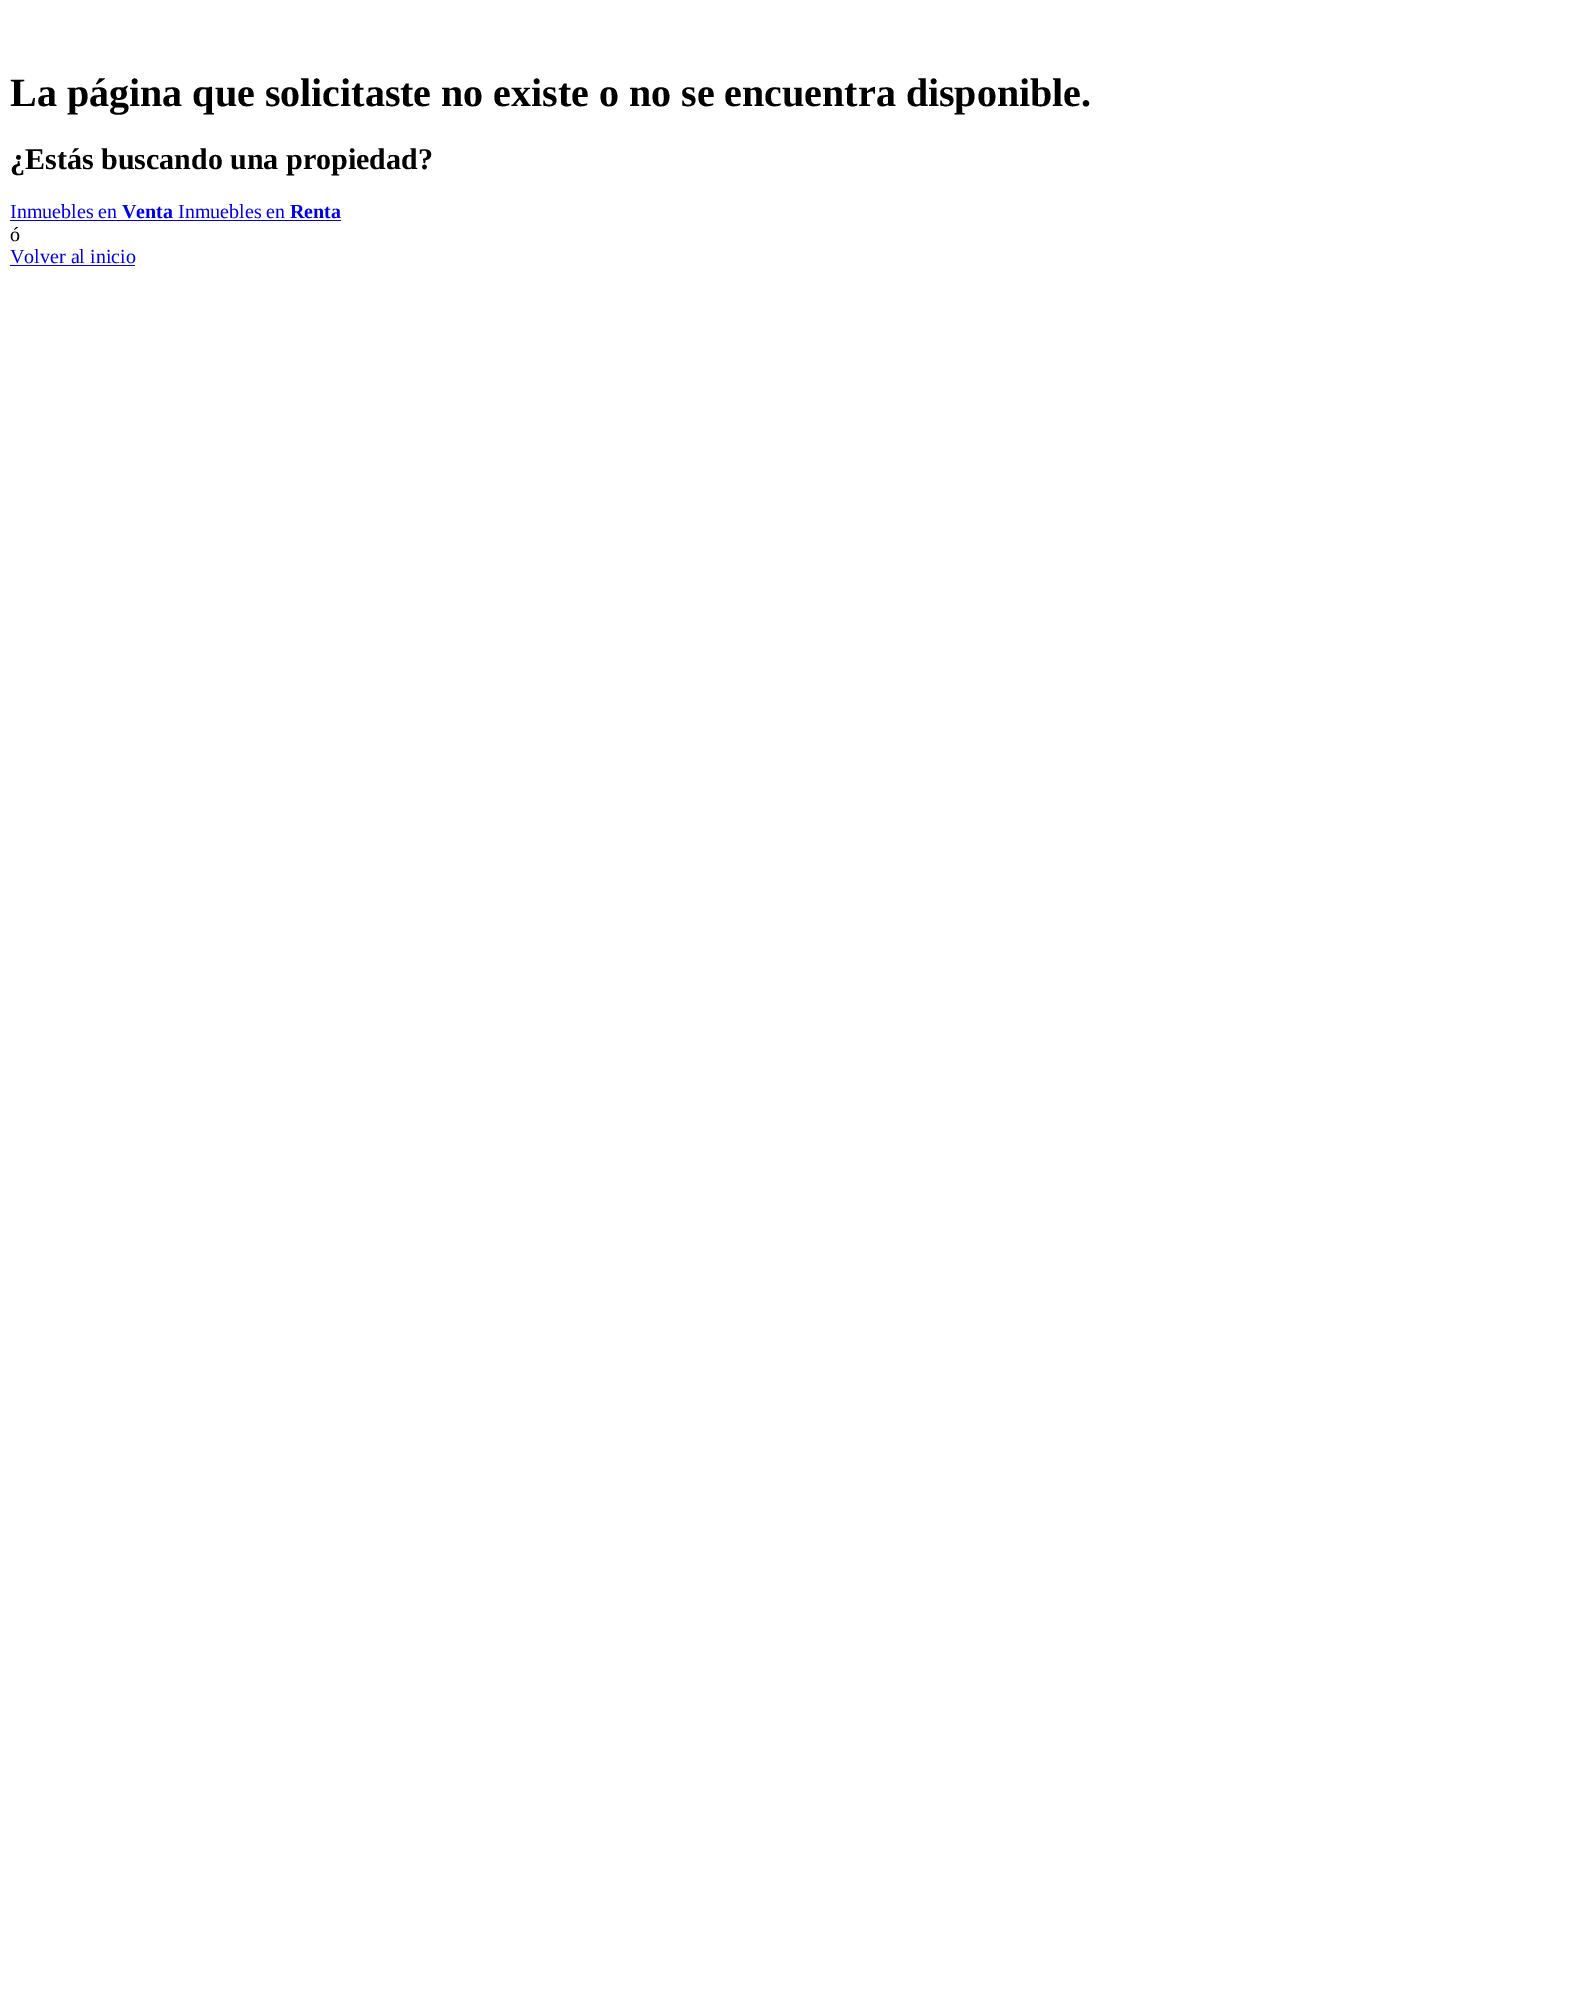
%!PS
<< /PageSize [1586 2013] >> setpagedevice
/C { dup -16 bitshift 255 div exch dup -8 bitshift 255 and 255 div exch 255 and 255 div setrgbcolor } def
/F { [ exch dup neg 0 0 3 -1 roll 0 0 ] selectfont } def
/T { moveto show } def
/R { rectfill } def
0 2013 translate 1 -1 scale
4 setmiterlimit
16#FFFFFF C
0 0 1586 2013 R
/LiberationSerif-Bold 40 F
16#000000 C
(La página que solicitaste no existe o no se encuentra disponible.) 10 106 T
/LiberationSerif-Bold 30 F
(¿Estás buscando una propiedad?) 10 169 T
/LiberationSerif-Regular 20 F
16#0000EE C
(Inmuebles en) 10 218 T
10 220 331 1 R
/LiberationSerif-Bold 20 F
(Venta) 122 218 T
/LiberationSerif-Regular 20 F
(Inmuebles en) 178 218 T
/LiberationSerif-Bold 20 F
(Renta) 290 218 T
/LiberationSerif-Regular 20 F
16#000000 C
(ó) 10 241 T
16#0000EE C
(Volver al inicio) 10 263 T
10 265 125 1 R
showpage
